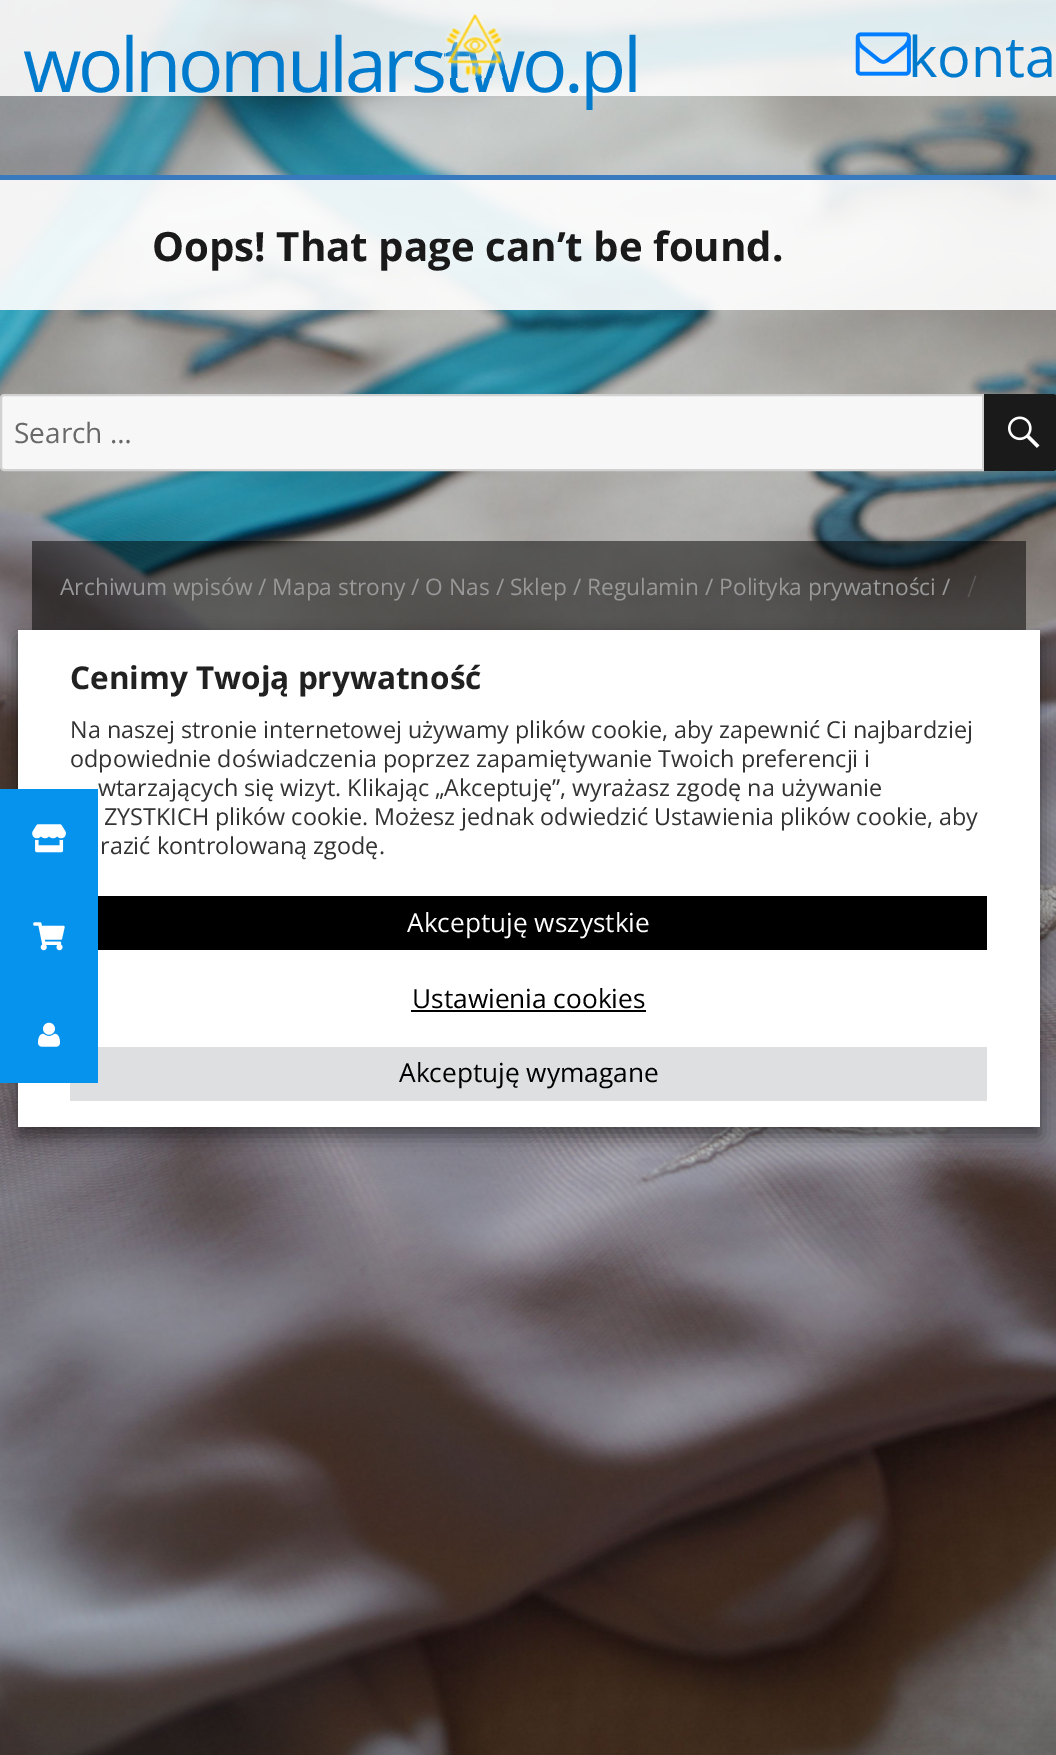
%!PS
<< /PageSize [1056 1755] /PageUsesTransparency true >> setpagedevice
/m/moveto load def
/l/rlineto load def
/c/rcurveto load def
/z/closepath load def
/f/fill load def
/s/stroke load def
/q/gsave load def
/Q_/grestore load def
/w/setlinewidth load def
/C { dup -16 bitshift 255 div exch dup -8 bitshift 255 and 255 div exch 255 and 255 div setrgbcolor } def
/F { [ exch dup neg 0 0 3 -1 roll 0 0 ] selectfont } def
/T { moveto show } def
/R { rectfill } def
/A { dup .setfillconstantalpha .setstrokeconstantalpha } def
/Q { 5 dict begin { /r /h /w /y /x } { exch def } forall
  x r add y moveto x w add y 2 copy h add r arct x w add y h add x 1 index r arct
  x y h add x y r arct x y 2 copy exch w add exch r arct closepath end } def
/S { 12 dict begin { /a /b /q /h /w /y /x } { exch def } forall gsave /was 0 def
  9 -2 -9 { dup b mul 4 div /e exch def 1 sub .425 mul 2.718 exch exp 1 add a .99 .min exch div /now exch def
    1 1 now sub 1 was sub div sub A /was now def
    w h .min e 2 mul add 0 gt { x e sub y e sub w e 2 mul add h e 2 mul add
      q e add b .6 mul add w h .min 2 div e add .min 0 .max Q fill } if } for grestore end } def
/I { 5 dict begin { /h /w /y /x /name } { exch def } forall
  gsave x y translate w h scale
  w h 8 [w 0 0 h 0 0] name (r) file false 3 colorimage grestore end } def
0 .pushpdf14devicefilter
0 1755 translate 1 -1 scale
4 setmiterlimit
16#FFFFFF C
0 0 1056 1755 R
(1.rgb) 0 0 1056 1755 I
0.85 A
0 0 1056 96 R
/OpenSans-Regular 75.5 F
1 A
16#007ACC C
23 92 m -3.5 0 (wolnomularstwo.pl) ashow
(2.rgb) 445 14 60 64 I
(3.rgb) 855 32 56 44 I
/OpenSans-Regular 56 F
(konta) 908 77 T
16#387ABD C
0 175 1056 5 R
0.9 A
16#FFFFFF C
0 180 1056 130 R
/OpenSans-Bold 40.25 F
1 A
16#1A1A1A C
(Oops! That page can’t be found.) 152 261 T
16#F7F7F7 C
4 395 m 979 0 l 0 75 l -979 0 l -1.5 0 -3 -1.5 -3 -3 c 0 -69 l 0 -1.5 1.5 -3 3 -3 c z q f Q_
16#D1D1D1 C
2 w
s
/OpenSans-Regular 28 F
16#686868 C
(Search …) 14 443 T
16#1A1A1A C
984 394 m 69 0 l 2 0 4 2 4 4 c 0 69 l 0 2 -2 4 -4 4 c -69 0 l z f
(4.rgb) 1008 416 32 32 I
0.5 A
16#000000 C
32 541 994 89 R
/OpenSans-Regular 22.75 F
1 A
16#999999 C
(Archiwum wpisów / Mapa strony / O Nas / Sklep / Regulamin / Polityka prywatności /) 60 595 T
/Montserrat-Regular 22.75 F
16#5C5B5A C
(/) 968 595 T
16#000000 C
18 639 1022 497 0 9 .5 S
16#FFFFFF C
18 630 1022 497 R
16#DEDFE0 C
70 1047 917 54 R
16#0693EE C
0 789 98 294 R
(5.rgb) 32 824 34 29 I
(6.rgb) 33 922 32 29 I
(7.rgb) 38 1022 22 25 I
/OpenSans-Bold 31.5 F
16#212121 C
(Cenimy Twoją prywatność) 70 689 T
/OpenSans-Regular 23.35 F
16#333333 C
(Na naszej stronie internetowej używamy plików cookie, aby zapewnić Ci najbardziej) 70 738 T
(odpowiednie doświadczenia poprzez zapamiętywanie Twoich preferencji i) 70 767 T
(wtarzających się wizyt. Klikając „Akceptuję”, wyrażasz zgodę na używanie) 98 796 T
(ZYSTKICH plików cookie. Możesz jednak odwiedzić Ustawienia plików cookie, aby) 104 825 T
(razić kontrolowaną zgodę.) 100 854 T
16#000000 C
98 896 889 54 R
/OpenSans-Regular 26.25 F
16#FFFFFF C
(Akceptuję wszystkie) 407 932 T
16#000000 C
(Ustawienia cookies) 412 1008 T
411 1010 235 2 R
(Akceptuję wymagane) 399 1082 T
.poppdf14devicefilter showpage
